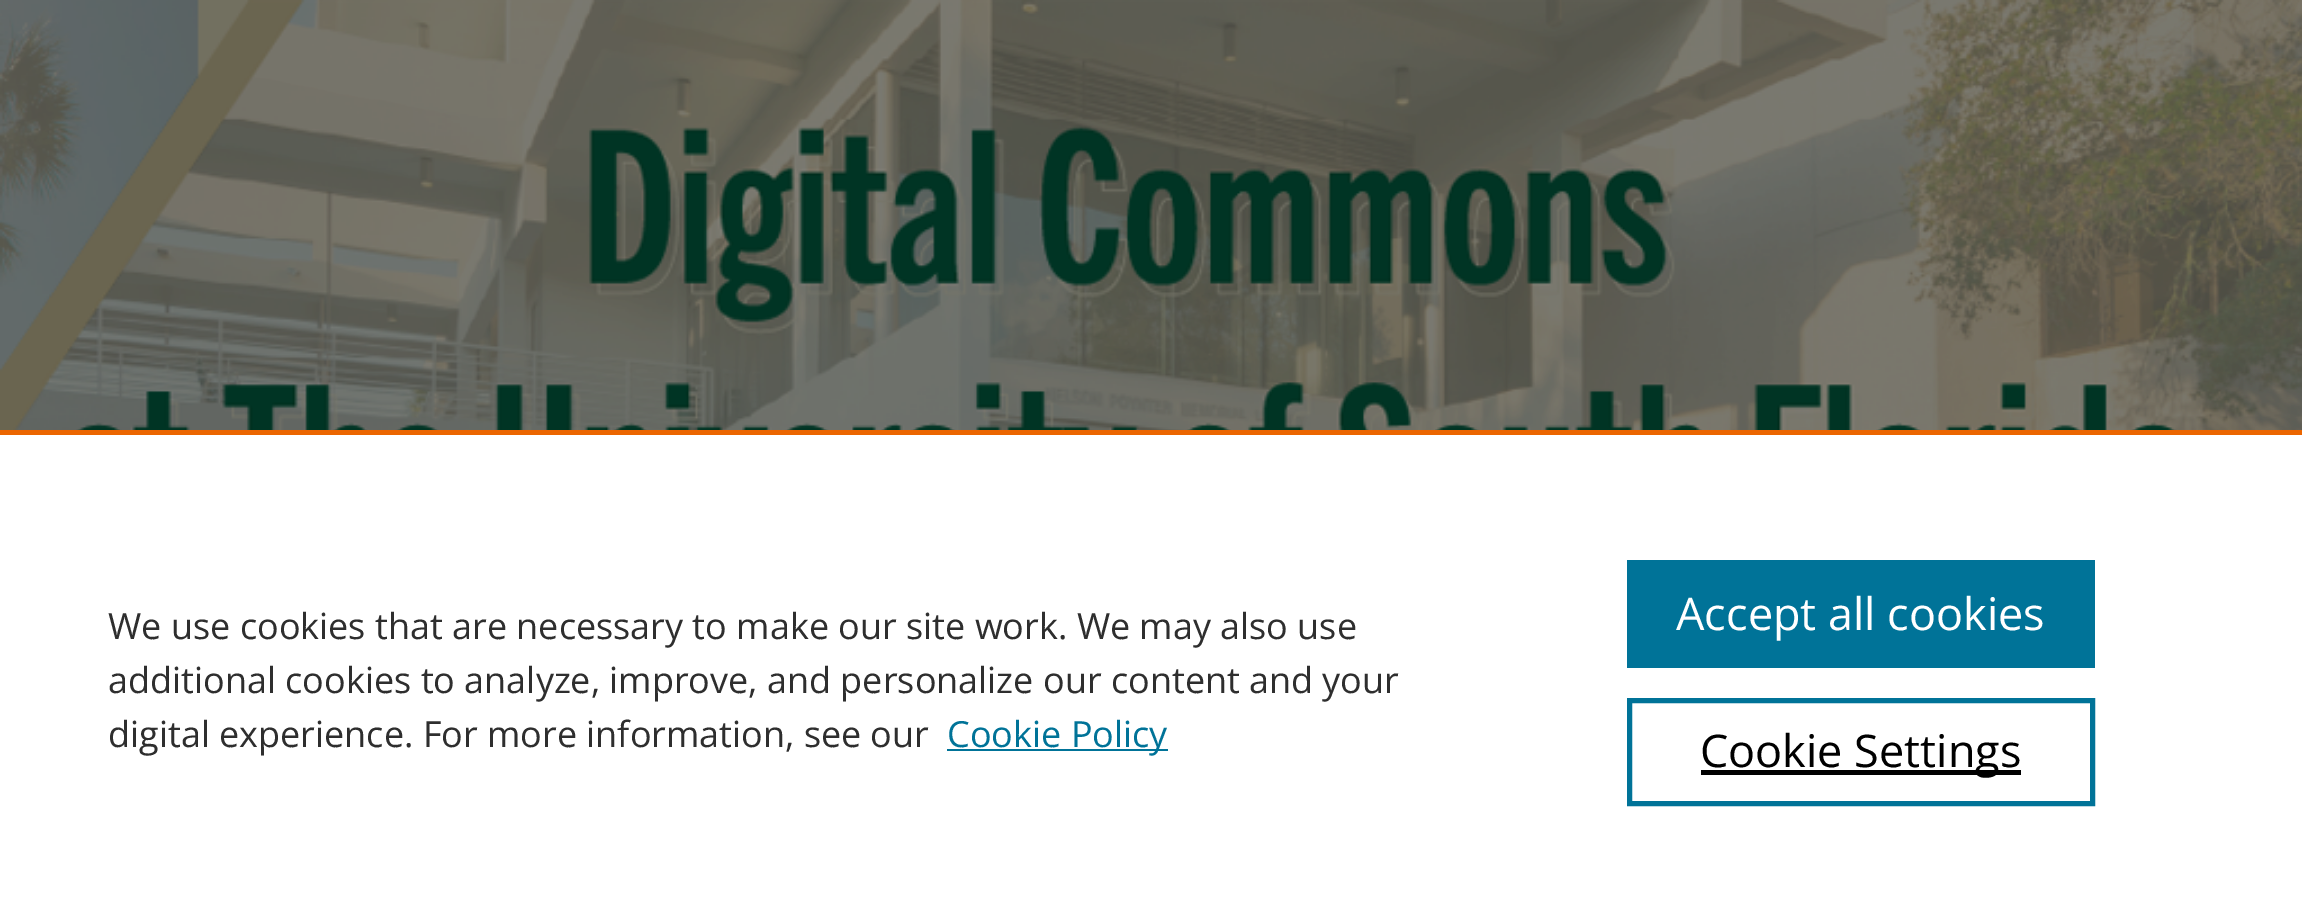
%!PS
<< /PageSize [2302 923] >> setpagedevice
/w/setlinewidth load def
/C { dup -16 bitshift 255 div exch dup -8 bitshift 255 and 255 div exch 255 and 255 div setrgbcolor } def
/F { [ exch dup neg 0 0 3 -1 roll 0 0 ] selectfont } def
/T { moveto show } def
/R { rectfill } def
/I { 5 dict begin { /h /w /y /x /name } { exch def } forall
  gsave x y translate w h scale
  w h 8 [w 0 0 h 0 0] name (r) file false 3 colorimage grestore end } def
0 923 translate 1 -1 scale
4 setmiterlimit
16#FFFFFF C
0 0 2302 923 R
(1.rgb) 0 0 2302 430 I
(2.rgb) 49 41 2206 389 I
16#EB6500 C
0 430 2302 5 R
/OpenSans-Regular 36 F
16#2E2E2E C
(We use cookies that are necessary to make our site work. We may also use) 108 639 T
(additional cookies to analyze, improve, and personalize our content and your) 108 693 T
(digital experience. For more information, see our) 108 747 T
16#007398 C
947 749 221 2 R
(Cookie Policy) 947 747 T
1627 560 468 108 R
/OpenSans-Regular 45 F
16#FFFFFF C
(Accept all cookies) 1676 630 T
16#007398 C
5 w
1629.5 700.5 463 103 rectstroke
16#000000 C
1701 770 320 5 R
(Cookie Settings) 1700 767 T
showpage
